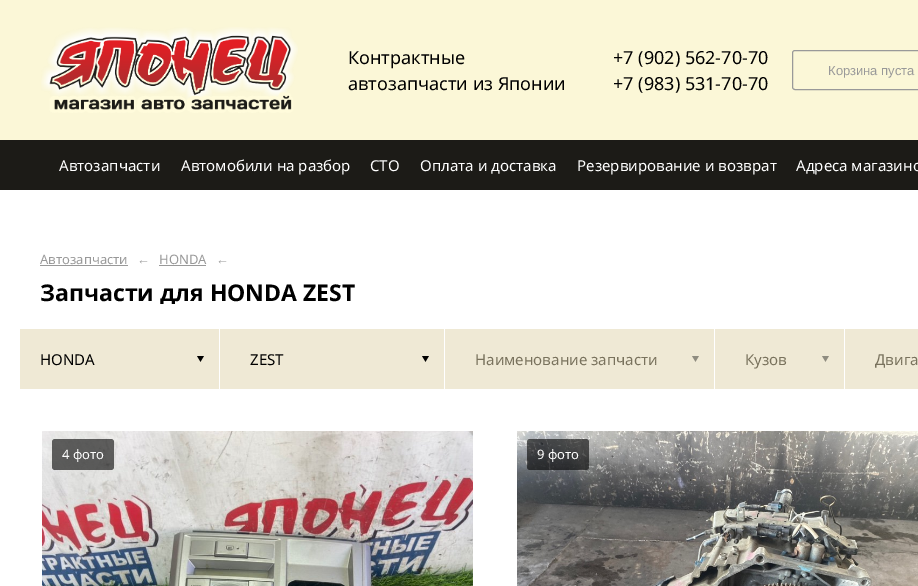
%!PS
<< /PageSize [918 586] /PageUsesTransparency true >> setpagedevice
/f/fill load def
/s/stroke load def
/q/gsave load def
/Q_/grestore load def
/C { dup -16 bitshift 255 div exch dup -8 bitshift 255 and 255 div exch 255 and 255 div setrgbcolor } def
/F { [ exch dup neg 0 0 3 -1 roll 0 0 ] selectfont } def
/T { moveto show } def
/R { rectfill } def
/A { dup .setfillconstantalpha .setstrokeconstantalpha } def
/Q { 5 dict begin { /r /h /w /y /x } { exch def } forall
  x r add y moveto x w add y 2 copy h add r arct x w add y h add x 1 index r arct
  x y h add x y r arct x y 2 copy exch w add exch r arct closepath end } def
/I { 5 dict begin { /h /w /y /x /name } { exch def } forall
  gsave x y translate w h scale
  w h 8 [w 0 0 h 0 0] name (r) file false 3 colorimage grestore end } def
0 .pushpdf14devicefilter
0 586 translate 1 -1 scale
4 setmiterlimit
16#FFFFFF C
0 0 918 586 R
16#FBF7D7 C
0 0 918 140 R
(1.rgb) 41 27 257 86 I
/NotoSans-Regular 18 F
16#000000 C
(Контрактные) 348 64 T
(автозапчасти из Японии) 348 90 T
(+7 \(902\) 562-70-70) 613 64 T
(+7 \(983\) 531-70-70) 613 90 T
16#999999 C
792.5 50.5 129 39 2.5 Q s
/LiberationSans-Regular 13 F
(Корзина пуста) 828 75 T
16#1C1B17 C
0 140 918 50 R
/NotoSans-Regular 15 F
16#FFFFFF C
(Автозапчасти) 59 171 T
(Автомобили на разбор) 181 171 T
(СТО) 370 171 T
(Оплата и доставка) 420 171 T
(Резервирование и возврат) 577 171 T
(Адреса магазино) 796 171 T
/NotoSans-Regular 13 F
16#999999 C
(Автозапчасти) 40 264 T
40 265 88 1 R
(←) 137 264 T
(HONDA) 159 264 T
159 265 47 1 R
(←) 216 264 T
q
40 266 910 38 rectclip
/NotoSans-Bold 23 F
16#000000 C
(Запчасти для HONDA ZEST) 40 301 T
Q_
16#EFE9D5 C
20 329 199 60 R
/NotoSans-Regular 15 F
16#000000 C
(HONDA) 40 365 T
(2.rgb) 197 356 7 6 I
16#EFE9D5 C
220 329 224 60 R
16#000000 C
(ZEST) 250 365 T
(2.rgb) 422 356 7 6 I
16#EFE9D5 C
445 329 269 60 R
16#79725D C
(Наименование запчасти) 475 365 T
(3.rgb) 692 356 7 6 I
16#EFE9D5 C
715 329 129 60 R
16#79725D C
(Кузов) 745 365 T
(3.rgb) 822 356 7 6 I
16#EFE9D5 C
845 329 73 60 R
16#79725D C
(Двига) 875 365 T
(4.rgb) 42 431 431 155 I
0.6 A
16#000000 C
52 439 62 31 3 Q f
/NotoSans-Regular 13 F
1 A
16#FFFFFF C
(4 фото) 62 459 T
(5.rgb) 517 431 401 155 I
0.6 A
16#000000 C
527 439 62 31 3 Q f
1 A
16#FFFFFF C
(9 фото) 537 459 T
.poppdf14devicefilter showpage
